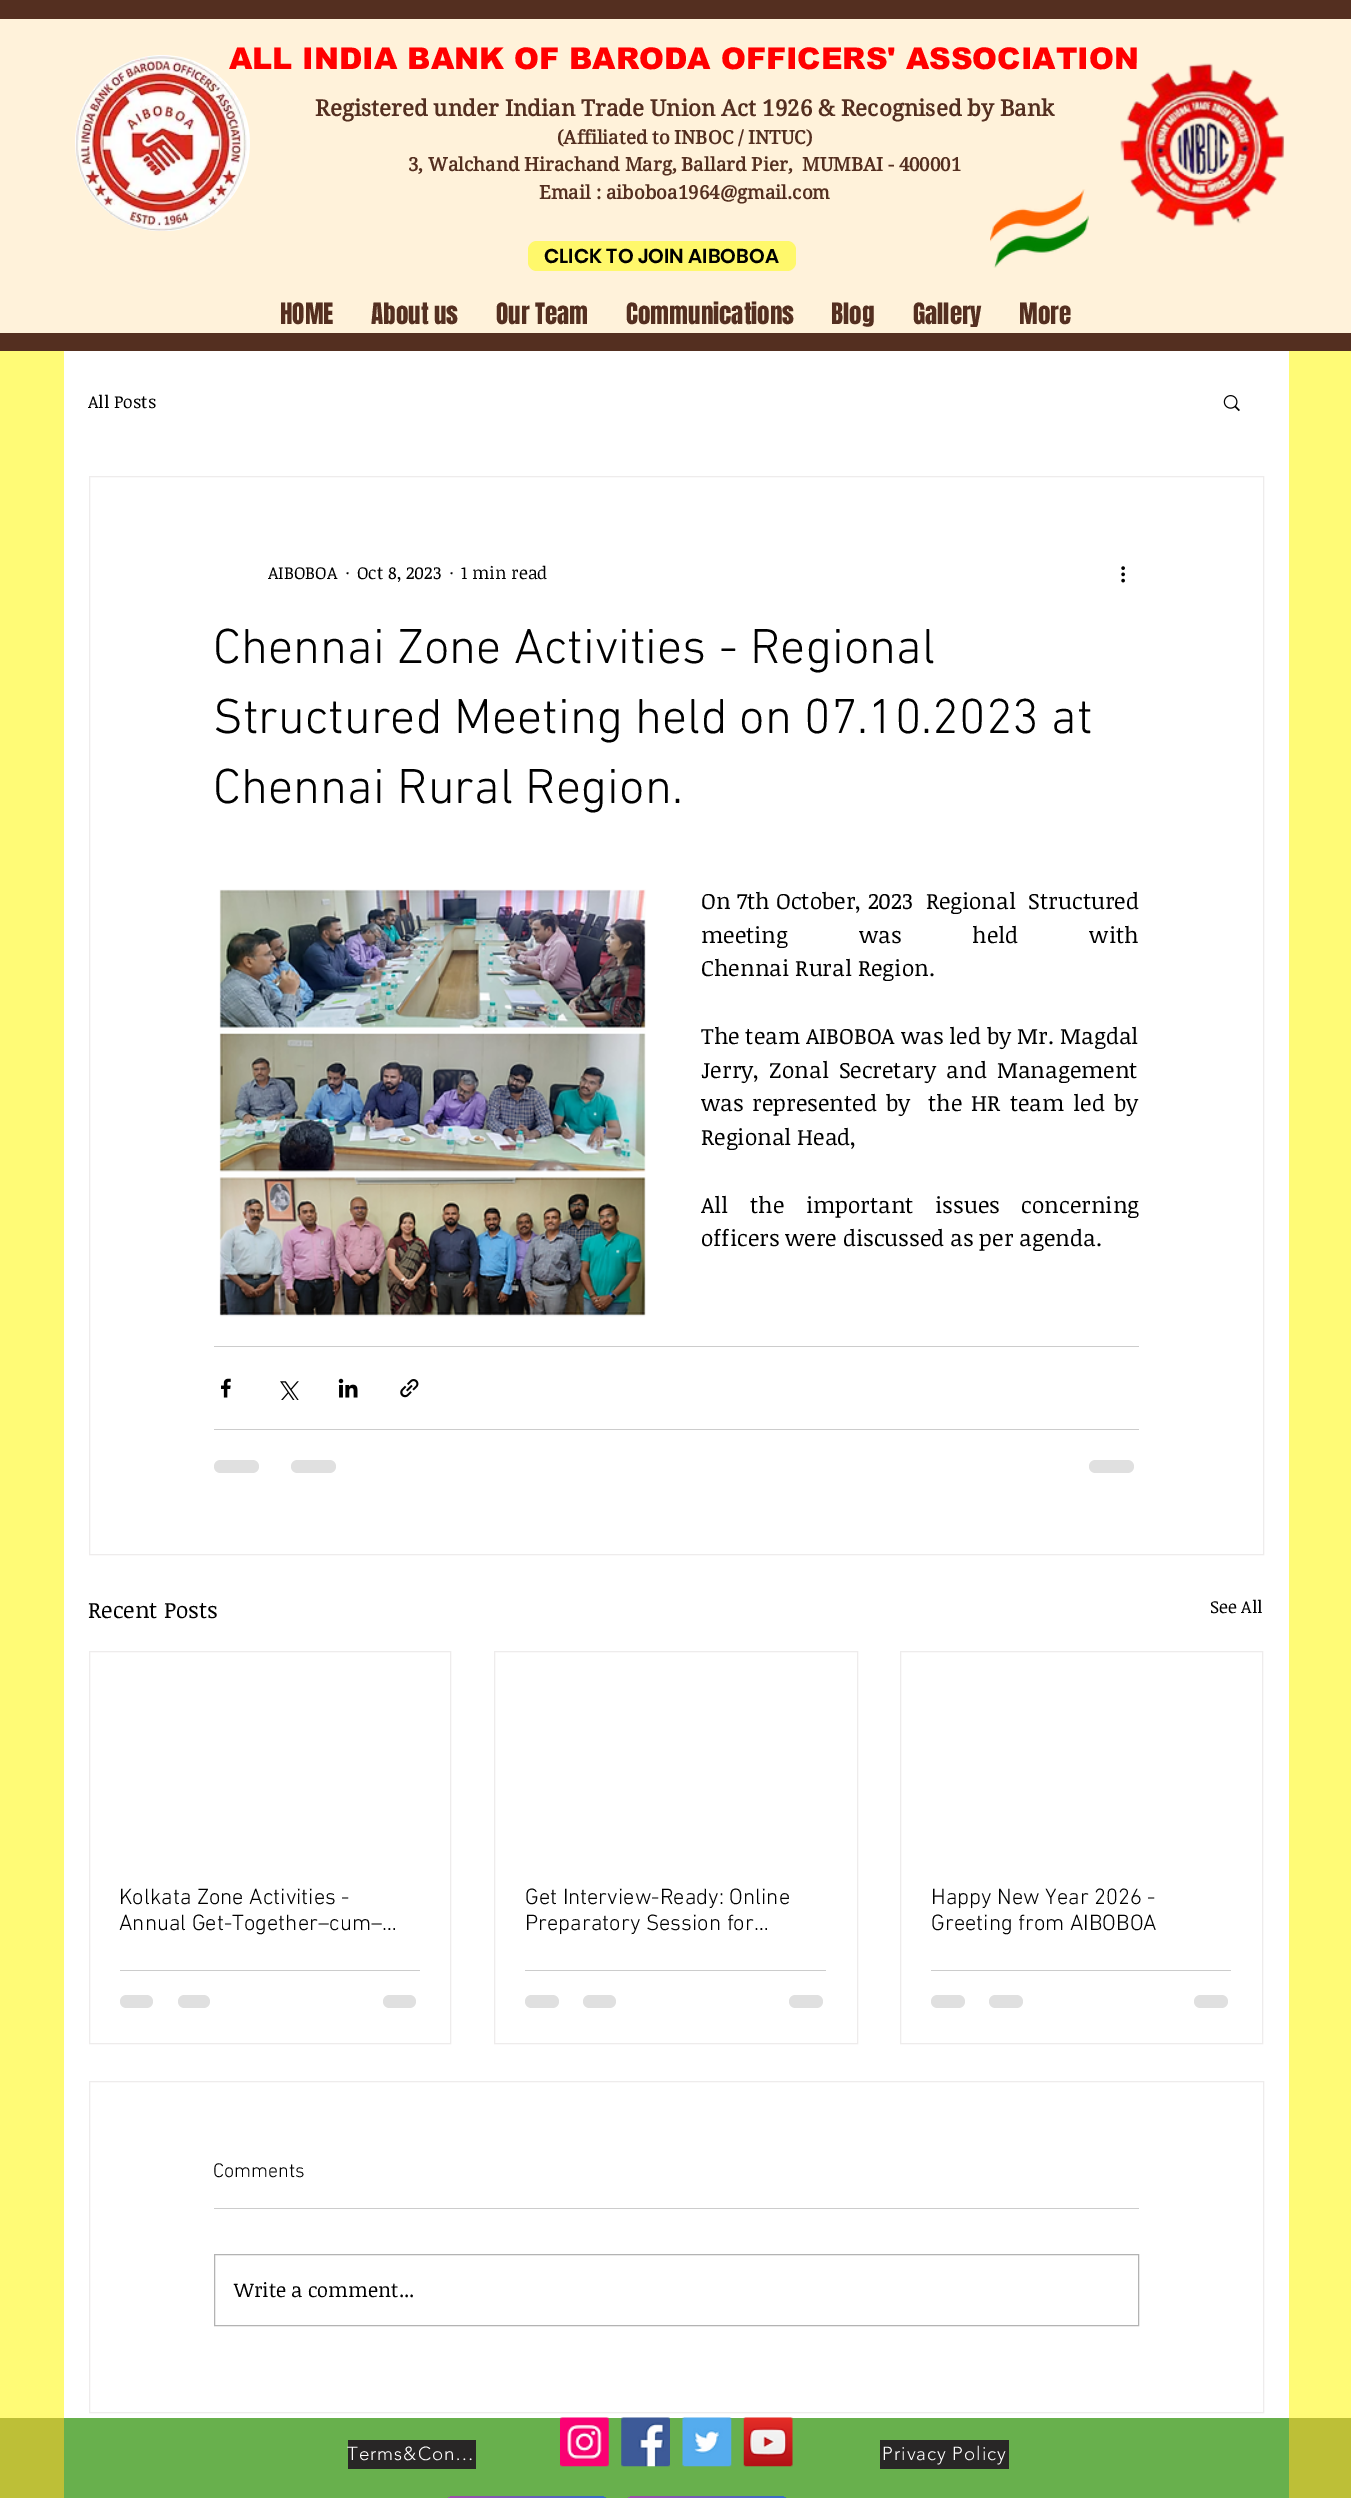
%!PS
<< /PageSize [1351 2498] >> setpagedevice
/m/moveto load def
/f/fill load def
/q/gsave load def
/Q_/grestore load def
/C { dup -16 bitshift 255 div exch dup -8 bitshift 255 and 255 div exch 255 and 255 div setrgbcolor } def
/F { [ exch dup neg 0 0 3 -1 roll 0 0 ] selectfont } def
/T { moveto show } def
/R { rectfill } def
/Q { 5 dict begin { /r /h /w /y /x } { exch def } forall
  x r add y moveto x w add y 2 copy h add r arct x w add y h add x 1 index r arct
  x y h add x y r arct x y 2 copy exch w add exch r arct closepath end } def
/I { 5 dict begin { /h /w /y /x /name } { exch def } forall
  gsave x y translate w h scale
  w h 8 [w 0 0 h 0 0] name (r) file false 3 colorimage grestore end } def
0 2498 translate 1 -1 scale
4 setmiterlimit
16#FFFB76 C
0 0 1351 2498 R
16#FFF2DA C
0 19 1351 314 R
16#542F20 C
0 0 1351 19 R
0 333 1351 18 R
(1.rgb) 75 55 175 176 I
/arial-Black 30 F
16#FF0000 C
(ALL INDIA BANK OF BARODA OFFICERS' ASSOCIATION) 229 69 T
(2.rgb) 1120 63 165 164 I
/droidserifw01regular-Bold 22.5 F
16#542F20 C
(Registered under Indian Trade Union Act 1926 & Recognised by Bank) 315 116 T
/droidserifw01regular-Bold 18.75 F
(\(Affiliated to INBOC / INTUC\)) 557 144 T
(3, Walchand Hirachand Marg, Ballard Pier,  MUMBAI - 400001) 408 171 T
(Email : aiboboa1964@gmail.com) 539 199 T
16#FFF86B C
528 241 268 30 9 Q f
/Poppins-SemiBold 20 F
16#000000 C
(CLICK TO JOIN AIBOBOA) 544 263 T
(3.rgb) 990 189 99 79 I
/Anton-Regular 25 F
16#542F20 C
(HOME) 280 324 T
(About us) 371 324 T
(Our Team) 496 324 T
(Communications) 626 324 T
(Blog) 831 324 T
(Gallery) 913 324 T
(More) 1019 324 T
16#FFFFFF C
64 351 1225 2067 R
/NoticiaText-Regular 17.5 F
16#000000 C
(All Posts) 88 408 T
(4.rgb) 1223 395 17 17 I
16#EEECEC C
89.5 476.5 1174 1078 rectstroke
16#000000 C
(AIBOBOA) 268 579 T
(·) 345 579 T
(Oct 8, 2023) 357 579 T
(·) 449 579 T
(1 min read) 461 579 T
(5.rgb) 1121 566 4 17 I
/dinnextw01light-Light 50 F
(Chennai Zone Activities - Regional) 213 663 T
(Structured Meeting held on 07.10.2023 at) 213 733 T
(Chennai Rural Region.) 213 803 T
(6.rgb) 219 889 427 428 I
/NoticiaText-Regular 22.5 F
701 909 m .25 0 32 (On 7th October, 2023  Regional  Structured) widthshow
701 943 m 65 0 32 (meeting was held with) widthshow
(Chennai Rural Region.) 701 976 T
(The team AIBOBOA was led by Mr. Magdal) 701 1044 T
701 1078 m 4 0 32 (Jerry, Zonal Secretary and Management) widthshow
701 1111 m 3 0 32 (was represented by  the HR team led by) widthshow
(Regional Head,) 701 1145 T
701 1213 m 15.5 0 32 (All the important issues concerning) widthshow
(officers were discussed as per agenda.) 701 1246 T
16#CCCCCC C
214 1346 925 1 R
(7.rgb) 221 1378 10 20 I
(8.rgb) 280 1381 19 19 I
(9.rgb) 338 1378 20 20 I
(10.rgb) 400 1379 19 19 I
214 1429 925 1 R
16#E0E0E0 C
214 1460 45 13 6.5 Q f
291 1460 45 13 6.5 Q f
1089 1460 45 13 6.5 Q f
16#000000 C
(Recent Posts) 88 1618 T
/NoticiaText-Regular 17.5 F
(See All) 1210 1613 T
16#EEECEC C
89.5 1651.5 361 392 rectstroke
/dinnextw01light-Light 22.5 F
16#000000 C
(Kolkata Zone Activities -) 119 1904 T
(Annual Get-Together–cum–…) 119 1930 T
16#CCCCCC C
120 1970 300 1 R
16#E0E0E0 C
120 1995 33 13 6.5 Q f
178 1995 32 13 6.5 Q f
383 1995 33 13 6.5 Q f
16#EEECEC C
494.5 1651.5 363 392 rectstroke
16#000000 C
(Get Interview-Ready: Online) 525 1904 T
(Preparatory Session for…) 525 1930 T
16#CCCCCC C
525 1970 301 1 R
16#E0E0E0 C
525 1995 34 13 6.5 Q f
583 1995 33 13 6.5 Q f
789 1995 34 13 6.5 Q f
16#EEECEC C
900.5 1651.5 362 392 rectstroke
16#000000 C
(Happy New Year 2026 -) 931 1904 T
(Greeting from AIBOBOA) 931 1930 T
16#CCCCCC C
931 1970 300 1 R
16#E0E0E0 C
931 1995 34 13 6.5 Q f
989 1995 34 13 6.5 Q f
1194 1995 34 13 6.5 Q f
16#EEECEC C
89.5 2081.5 1174 331 rectstroke
/dinnextw01light-Light 20 F
16#000000 C
(Comments) 213 2177 T
16#CCCCCC C
214 2208 925 1 R
16#B3B3B3 C
214.5 2254.5 924 71 rectstroke
/NoticiaText-Regular 20 F
16#000000 C
(Write a comment...) 234 2297 T
16#BDBF37 C
0 2418 1351 80 R
16#68B04D C
64 2418 1225 80 R
16#282626 C
348 2440 128 29 R
/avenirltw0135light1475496-Light 18.75 F
16#FFFFFF C
347 2460 m 1 0 (Terms&Con…) ashow
(11.rgb) 560 2417 49 50 I
(12.rgb) 621 2417 49 50 I
(13.rgb) 682 2417 50 50 I
(14.rgb) 743 2417 50 50 I
16#282626 C
880 2440 129 29 R
16#FFFFFF C
882 2460 m 1 0 (Privacy Policy) ashow
q 441 2496 172 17 14.5 Q clip newpath
<< /ShadingType 2 /ColorSpace /DeviceRGB /Coords [486 2460 568 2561] /Extend [true true] /Function << /FunctionType 2 /Domain [0 1] /C0 [.647 .302 .667] /C1 [.106 .467 .804] /N 1 >> >> shfill Q_
q 621 2496 172 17 14.5 Q clip newpath
<< /ShadingType 2 /ColorSpace /DeviceRGB /Coords [666 2460 748 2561] /Extend [true true] /Function << /FunctionType 2 /Domain [0 1] /C0 [.647 .302 .667] /C1 [.106 .467 .804] /N 1 >> >> shfill Q_
showpage
